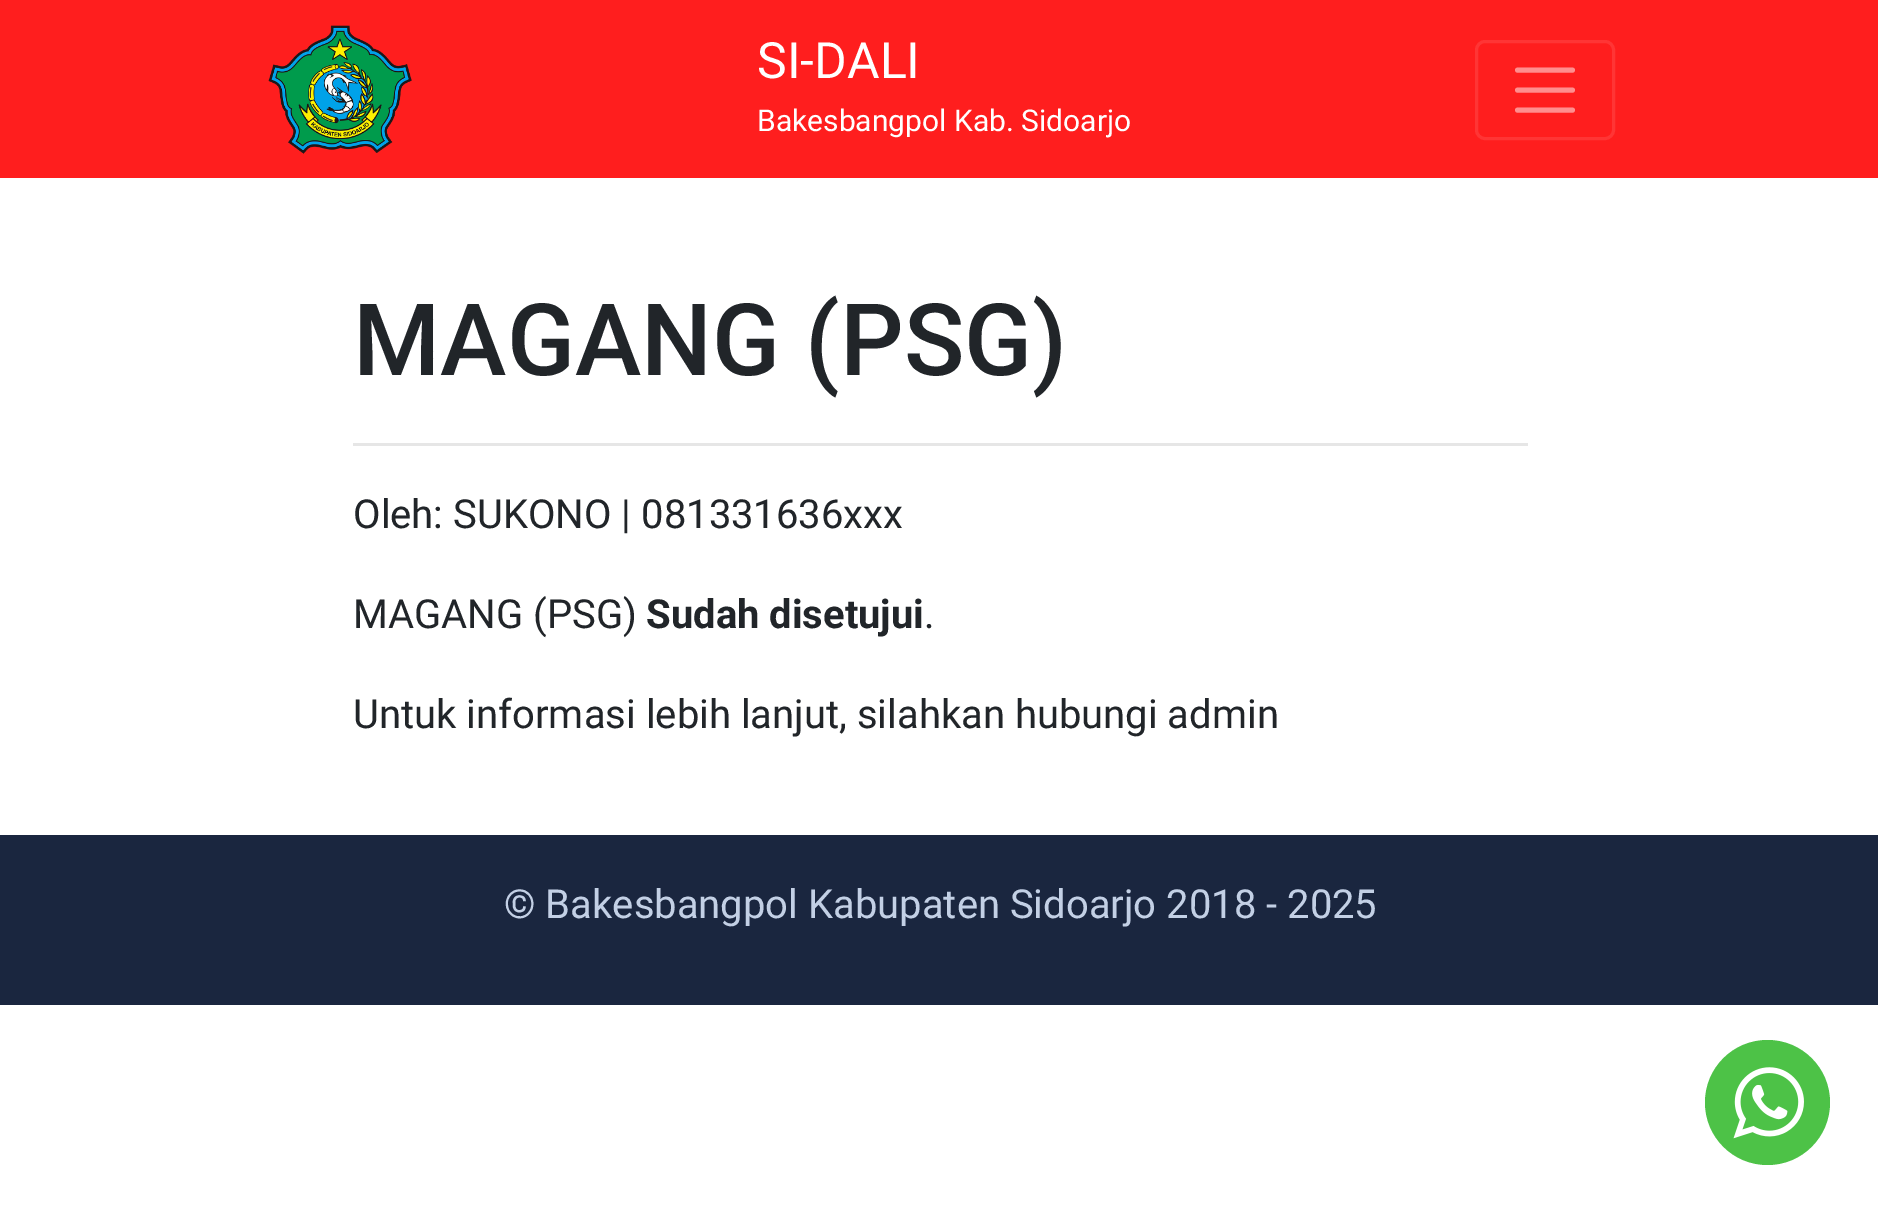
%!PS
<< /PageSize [1878 1213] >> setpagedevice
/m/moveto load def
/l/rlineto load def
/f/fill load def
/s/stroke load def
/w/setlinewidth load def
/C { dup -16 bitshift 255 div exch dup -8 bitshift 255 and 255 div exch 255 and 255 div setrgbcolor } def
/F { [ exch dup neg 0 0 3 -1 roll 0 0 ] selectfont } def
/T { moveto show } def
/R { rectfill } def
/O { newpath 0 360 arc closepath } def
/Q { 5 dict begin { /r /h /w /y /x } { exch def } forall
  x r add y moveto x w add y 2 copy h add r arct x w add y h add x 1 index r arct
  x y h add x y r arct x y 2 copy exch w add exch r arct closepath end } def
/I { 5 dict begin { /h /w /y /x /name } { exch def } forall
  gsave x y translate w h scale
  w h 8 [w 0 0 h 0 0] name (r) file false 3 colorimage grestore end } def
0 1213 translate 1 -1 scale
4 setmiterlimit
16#FFFFFF C
0 0 1878 1213 R
16#FF1E1E C
0 0 1878 178 R
(1.rgb) 268 25 144 129 I
/Roboto-Regular 50 F
16#FFFFFF C
(SI-DALI) 757 78 T
/Roboto-Regular 30 F
(Bakesbangpol Kab. Sidoarjo) 757 131 T
16#FF3535 C
3 w
1476.5 41.5 137 97 8.5 Q s
16#FF8F8F C
5 w
1 setlinecap
1517.5 70 m 55 0 l 1517.5 90 m 55 0 l 1517.5 110 m 55 0 l s
/Roboto-Medium 100 F
16#212529 C
(MAGANG \(PSG\)) 353 375 T
16#E6E6E6 C
353 443 1175 3 R
/Roboto-Regular 40 F
16#212529 C
(Oleh: SUKONO | 081331636xxx) 353 528 T
(MAGANG \(PSG\)) 353 628 T
/Roboto-Bold 40 F
(Sudah disetujui) 646 628 T
/Roboto-Regular 40 F
(.) 924 628 T
(Untuk informasi lebih lanjut, silahkan hubungi admin) 353 728 T
16#1A263F C
0 835 1878 170 R
16#C3D0E5 C
(© Bakesbangpol Kabupaten Sidoarjo 2018 - 2025) 504 918 T
16#4DC247 C
1767.5 1102.5 62.5 O f
(2.rgb) 1733 1067 71 72 I
showpage
